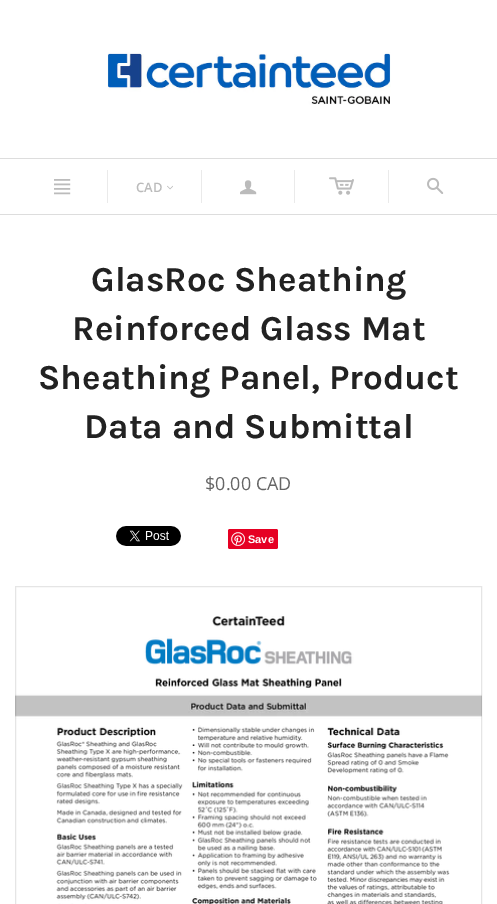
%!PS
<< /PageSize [497 904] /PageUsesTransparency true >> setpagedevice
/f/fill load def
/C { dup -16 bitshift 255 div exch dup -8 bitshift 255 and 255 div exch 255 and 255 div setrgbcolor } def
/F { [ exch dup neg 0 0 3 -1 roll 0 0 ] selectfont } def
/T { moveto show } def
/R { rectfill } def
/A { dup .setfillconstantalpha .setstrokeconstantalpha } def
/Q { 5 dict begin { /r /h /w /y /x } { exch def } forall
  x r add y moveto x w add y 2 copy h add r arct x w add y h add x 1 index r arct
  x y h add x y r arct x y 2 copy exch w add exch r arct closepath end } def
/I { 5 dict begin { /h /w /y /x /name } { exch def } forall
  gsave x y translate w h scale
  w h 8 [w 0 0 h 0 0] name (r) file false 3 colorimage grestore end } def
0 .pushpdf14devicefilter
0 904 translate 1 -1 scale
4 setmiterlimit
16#FFFFFF C
0 0 497 904 R
(1.rgb) 107 52 284 53 I
16#DDDDDD C
0 158 497 1 R
0 214 497 1 R
(2.rgb) 54 179 17 16 I
16#EAEAEA C
107 170 1 33 R
/OpenSans-SemiBold 13 F
16#BBBBBB C
(CAD) 136 192 T
(3.rgb) 167 185 6 5 I
16#EAEAEA C
201 170 1 33 R
(4.rgb) 240 180 17 15 I
294 170 1 33 R
(5.rgb) 329 177 25 18 I
388 170 1 33 R
(6.rgb) 427 177 17 17 I
/Karla-Bold 35 F
16#222222 C
(GlasRoc Sheathing) 91 291 T
(Reinforced Glass Mat) 72 340 T
(Sheathing Panel, Product) 38 389 T
(Data and Submittal) 84 438 T
/OpenSans-Regular 18 F
16#666666 C
($0.00 CAD) 205 490 T
(7.rgb) 116 526 65 20 I
16#E60023 C
228 529 50 20 2 Q f
(8.rgb) 231 532 14 14 I
/LiberationSans-Bold 11 F
16#FFFFFF C
(Save) 248 543 T
(9.rgb) 15 616 467 288 I
0.1 A
16#000000 C
15.5 586.5 466 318 rectstroke
.poppdf14devicefilter showpage
